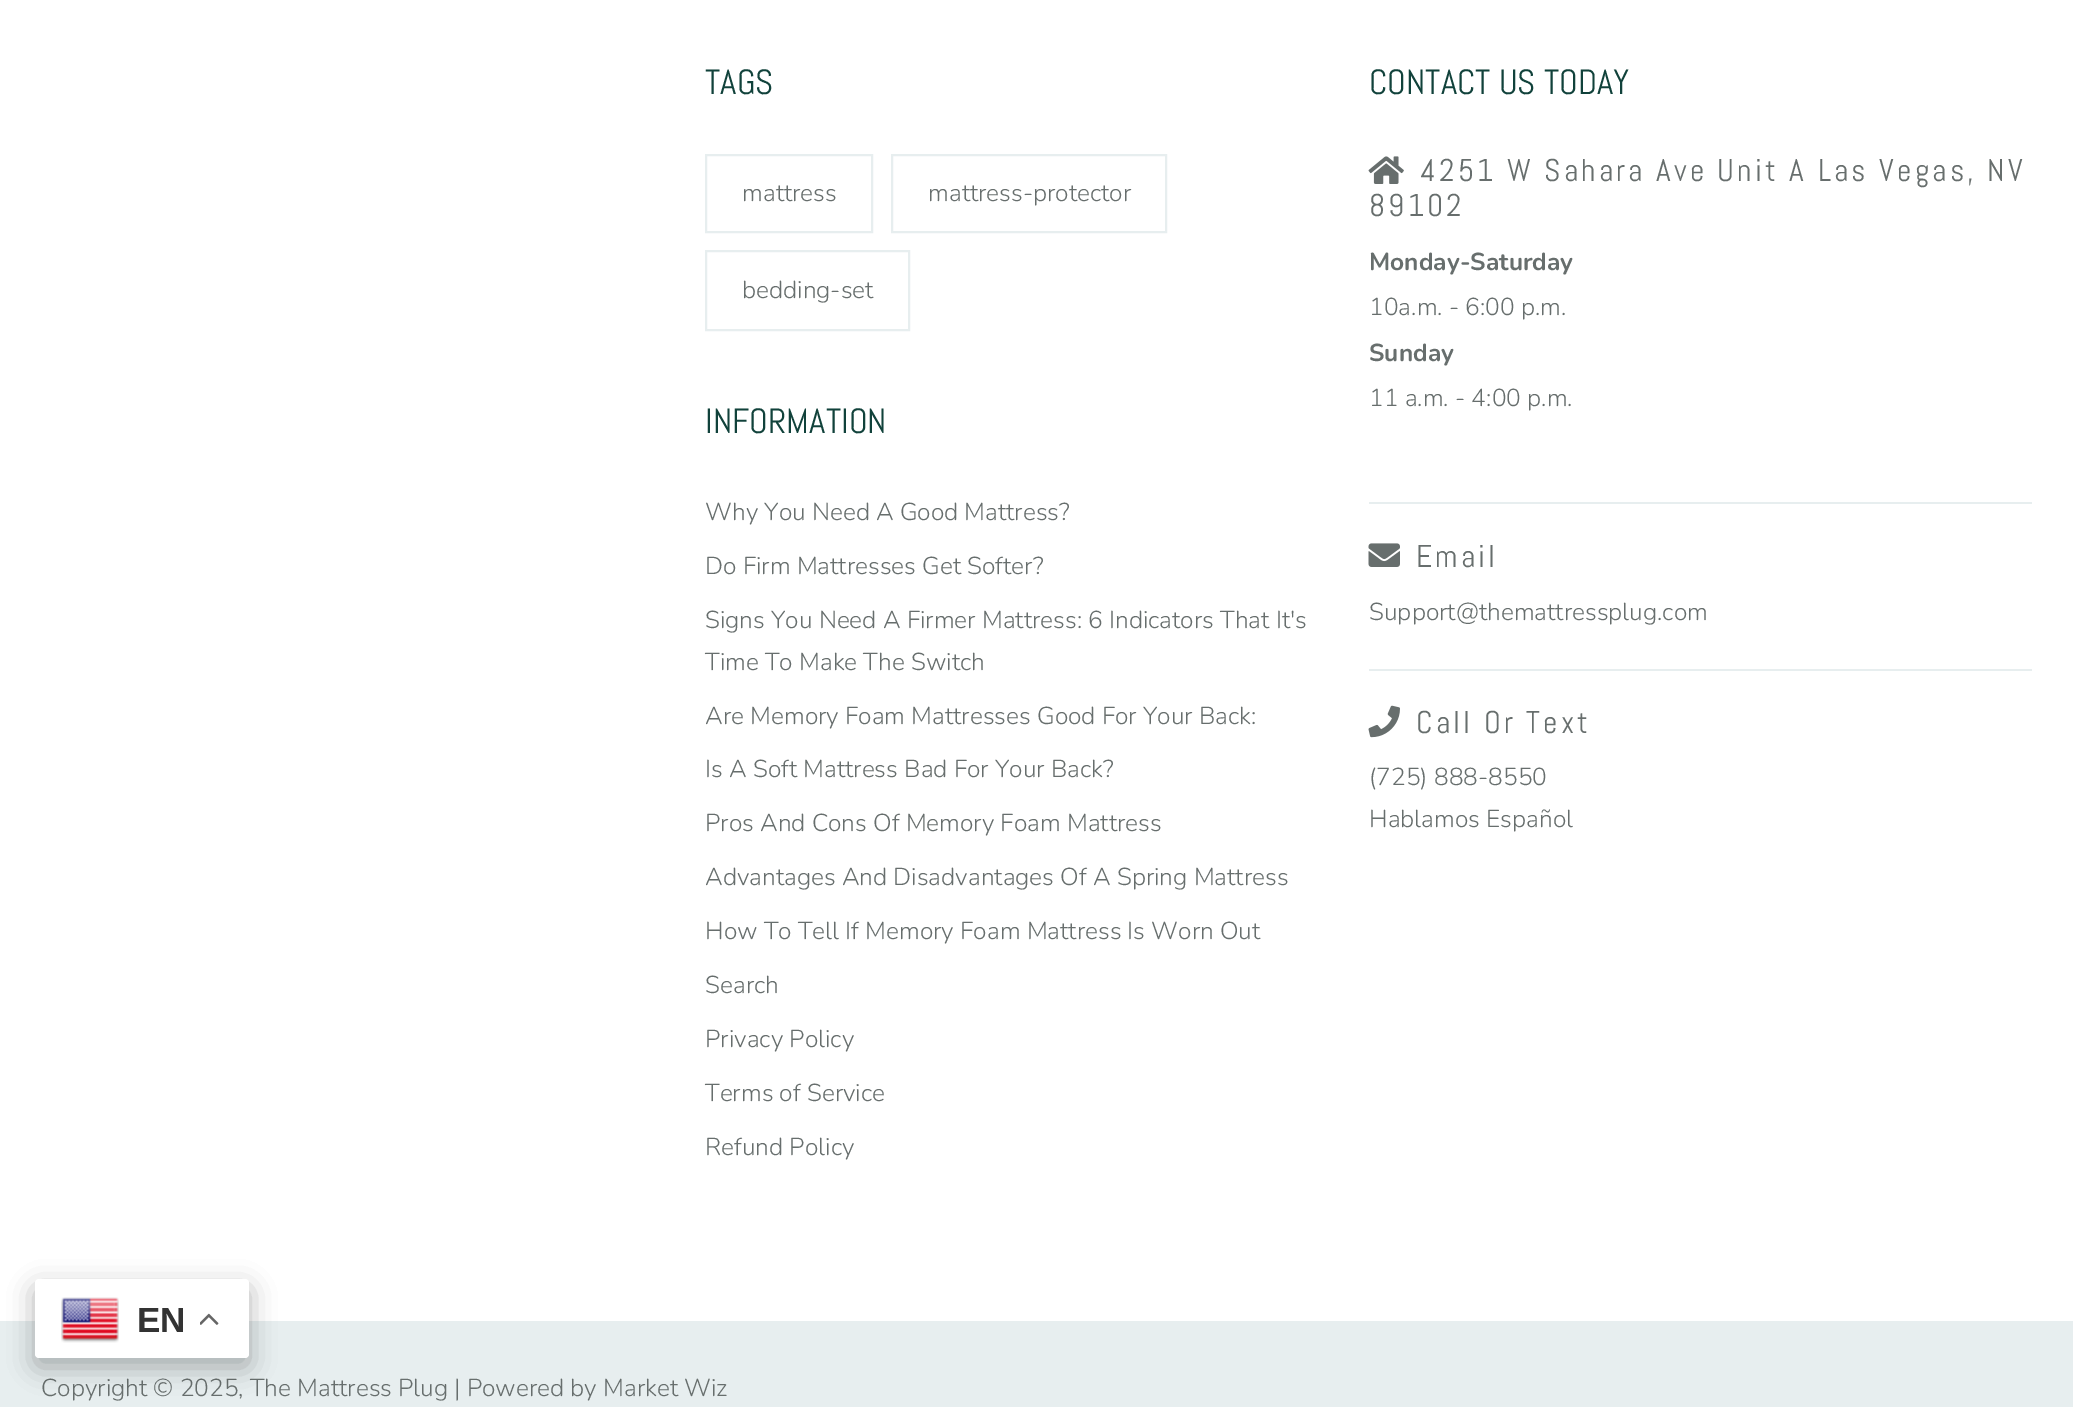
%!PS
<< /PageSize [2073 1407] /PageUsesTransparency true >> setpagedevice
/m/moveto load def
/f/fill load def
/w/setlinewidth load def
/C { dup -16 bitshift 255 div exch dup -8 bitshift 255 and 255 div exch 255 and 255 div setrgbcolor } def
/F { [ exch dup neg 0 0 3 -1 roll 0 0 ] selectfont } def
/T { moveto show } def
/R { rectfill } def
/A { dup .setfillconstantalpha .setstrokeconstantalpha } def
/Q { 5 dict begin { /r /h /w /y /x } { exch def } forall
  x r add y moveto x w add y 2 copy h add r arct x w add y h add x 1 index r arct
  x y h add x y r arct x y 2 copy exch w add exch r arct closepath end } def
/S { 12 dict begin { /a /b /q /h /w /y /x } { exch def } forall gsave /was 0 def
  9 -2 -9 { dup b mul 4 div /e exch def 1 sub .425 mul 2.718 exch exp 1 add a .99 .min exch div /now exch def
    1 1 now sub 1 was sub div sub A /was now def
    w h .min e 2 mul add 0 gt { x e sub y e sub w e 2 mul add h e 2 mul add
      q e add b .6 mul add w h .min 2 div e add .min 0 .max Q fill } if } for grestore end } def
/I { 5 dict begin { /h /w /y /x /name } { exch def } forall
  gsave x y translate w h scale
  w h 8 [w 0 0 h 0 0] name (r) file false 3 colorimage grestore end } def
0 .pushpdf14devicefilter
0 1407 translate 1 -1 scale
4 setmiterlimit
16#FFFFFF C
0 0 2073 1407 R
/Abel-Regular 35 F
16#11423B C
(TAGS) 705 94 T
16#E7EEEF C
2 w
706 155 166 77 rectstroke
/Nunito-Light 24.5 F
16#676E6D C
(mattress) 742 201 T
16#E7EEEF C
892 155 274 77 rectstroke
16#676E6D C
(mattress-protector) 928 201 T
16#E7EEEF C
706 251 203 79 rectstroke
16#676E6D C
(bedding-set) 742 298 T
/Abel-Regular 35 F
16#11423B C
(INFORMATION) 705 433 T
/Nunito-Light 24.5 F
16#676E6D C
(Why You Need A Good Mattress?) 705 520 T
(Do Firm Mattresses Get Softer?) 705 574 T
(Signs You Need A Firmer Mattress: 6 Indicators That It's) 705 628 T
(Time To Make The Switch) 705 670 T
(Are Memory Foam Mattresses Good For Your Back:) 705 724 T
(Is A Soft Mattress Bad For Your Back?) 705 777 T
(Pros And Cons Of Memory Foam Mattress) 705 831 T
(Advantages And Disadvantages Of A Spring Mattress) 705 885 T
(How To Tell If Memory Foam Mattress Is Worn Out) 705 939 T
(Search) 705 993 T
(Privacy Policy) 705 1047 T
(Terms of Service) 705 1101 T
(Refund Policy) 705 1155 T
/Abel-Regular 35 F
16#11423B C
(CONTACT US TODAY) 1369 94 T
16#E7EEEF C
1369 502 663 2 R
(1.rgb) 1368 156 36 28 I
/Abel-Regular 31.5 F
16#676E6D C
1420 181 m 3.15 0 (4251 W Sahara Ave Unit A Las Vegas, NV) ashow
1369 216 m 3.15 0 (89102) ashow
/Nunito-Bold 24.5 F
(Monday-Saturday) 1369 270 T
/Nunito-Light 24.5 F
(10a.m. - 6:00 p.m.) 1369 315 T
/Nunito-Bold 24.5 F
(Sunday) 1369 361 T
/Nunito-Light 24.5 F
(11 a.m. - 4:00 p.m.) 1369 406 T
16#E7EEEF C
1369 669 663 2 R
(2.rgb) 1368 543 32 24 I
/Abel-Regular 31.5 F
16#676E6D C
1416 567 m 3.15 0 (Email) ashow
/Nunito-Light 24.5 F
(Support@themattressplug.com) 1369 620 T
(3.rgb) 1368 705 32 33 I
/Abel-Regular 31.5 F
1416 733 m 3.15 0 (Call Or Text) ashow
/Nunito-Light 24.5 F
(\(725\) 888-8550) 1369 785 T
(Hablamos Español) 1369 827 T
16#E7EEEF C
0 1321 2073 86 R
16#676E6D C
(Copyright © 2025, The Mattress Plug | Powered by Market Wiz) 41 1396 T
16#000000 C
35 1288 214 79 4 13 .15 S
35 1288 214 79 4 13 .15 S
16#FFFFFF C
35 1279 214 79 4 Q f
(4.rgb) 61 1297 58 46 I
/LiberationSans-Bold 35 F
16#333333 C
(EN) 137 1332 T
(5.rgb) 200 1313 19 12 I
.poppdf14devicefilter showpage
